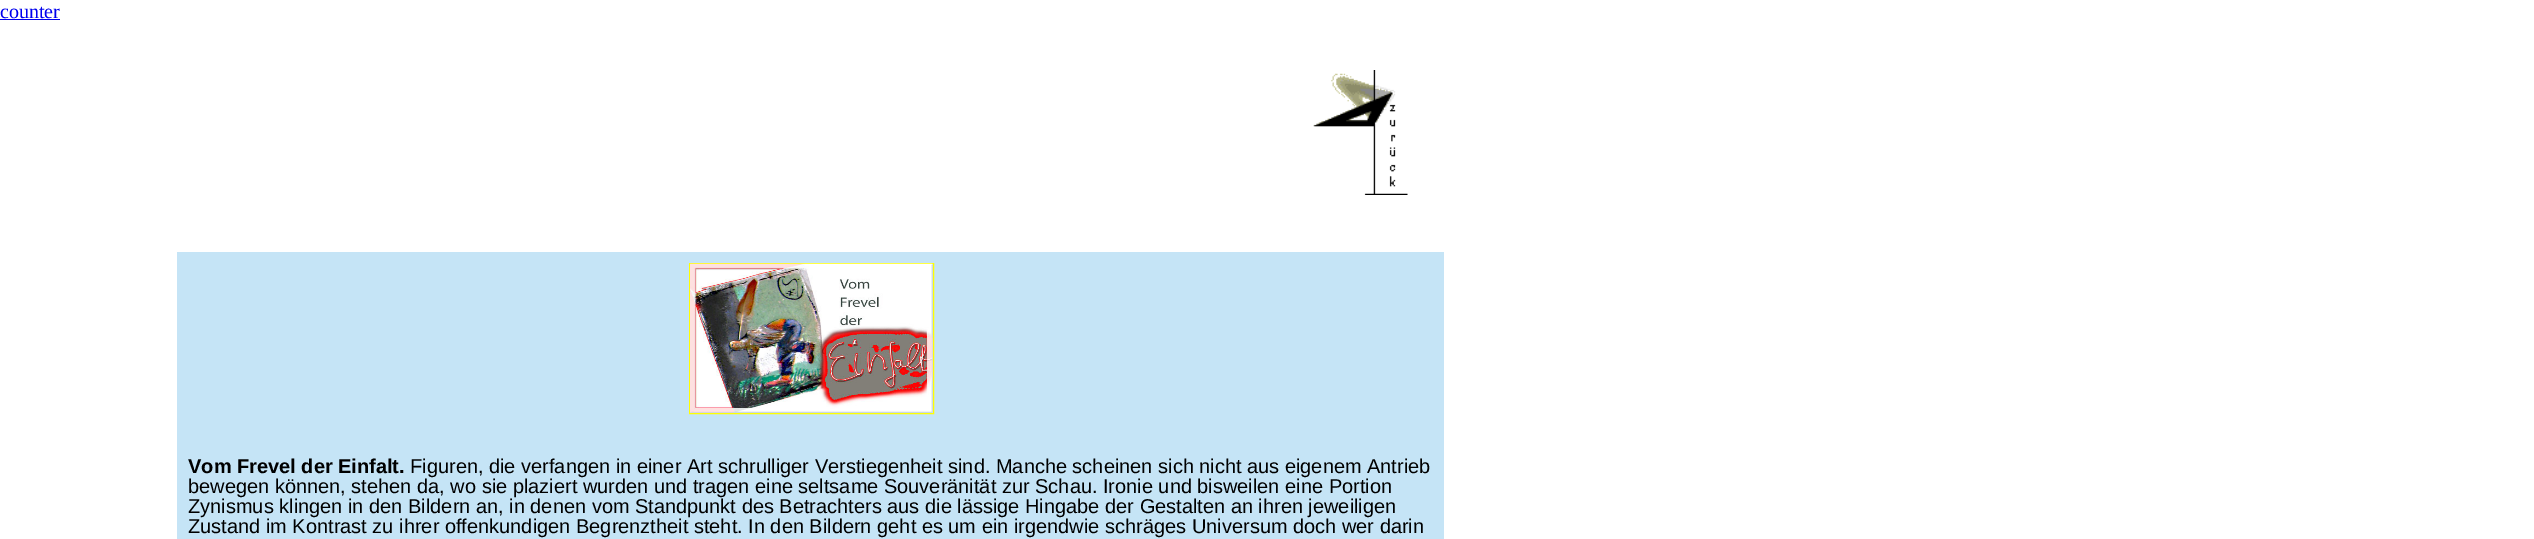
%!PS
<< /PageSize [2534 539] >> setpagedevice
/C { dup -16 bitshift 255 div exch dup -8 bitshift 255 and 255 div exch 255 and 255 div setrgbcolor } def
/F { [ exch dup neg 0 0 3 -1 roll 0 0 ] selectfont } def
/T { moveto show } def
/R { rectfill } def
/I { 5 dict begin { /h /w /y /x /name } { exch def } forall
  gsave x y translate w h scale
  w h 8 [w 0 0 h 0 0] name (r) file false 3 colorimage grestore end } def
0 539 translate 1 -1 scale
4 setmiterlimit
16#FFFFFF C
0 0 2534 539 R
/LiberationSerif-Regular 20 F
16#0000EE C
(counter) 0 18 T
0 19 60 1 R
(1.rgb) 1313 70 95 125 I
16#C5E4F6 C
177 252 1267 287 R
16#FFFF00 C
689.5 263.5 244 150 rectstroke
(2.rgb) 690 263 243 150 I
/LiberationSans-Bold 20 F
16#000000 C
(Vom Frevel der Einfalt.) 188 473 T
/LiberationSans-Regular 20 F
(Figuren, die verfangen in einer Art schrulliger Verstiegenheit sind. Manche scheinen sich nicht aus eigenem Antrieb) 410 473 T
(bewegen können, stehen da, wo sie plaziert wurden und tragen eine seltsame Souveränität zur Schau. Ironie und bisweilen eine Portion) 188 493 T
(Zynismus klingen in den Bildern an, in denen vom Standpunkt des Betrachters aus die lässige Hingabe der Gestalten an ihren jeweiligen) 188 513 T
(Zustand im Kontrast zu ihrer offenkundigen Begrenztheit steht. In den Bildern geht es um ein irgendwie schräges Universum doch wer darin) 188 533 T
showpage
